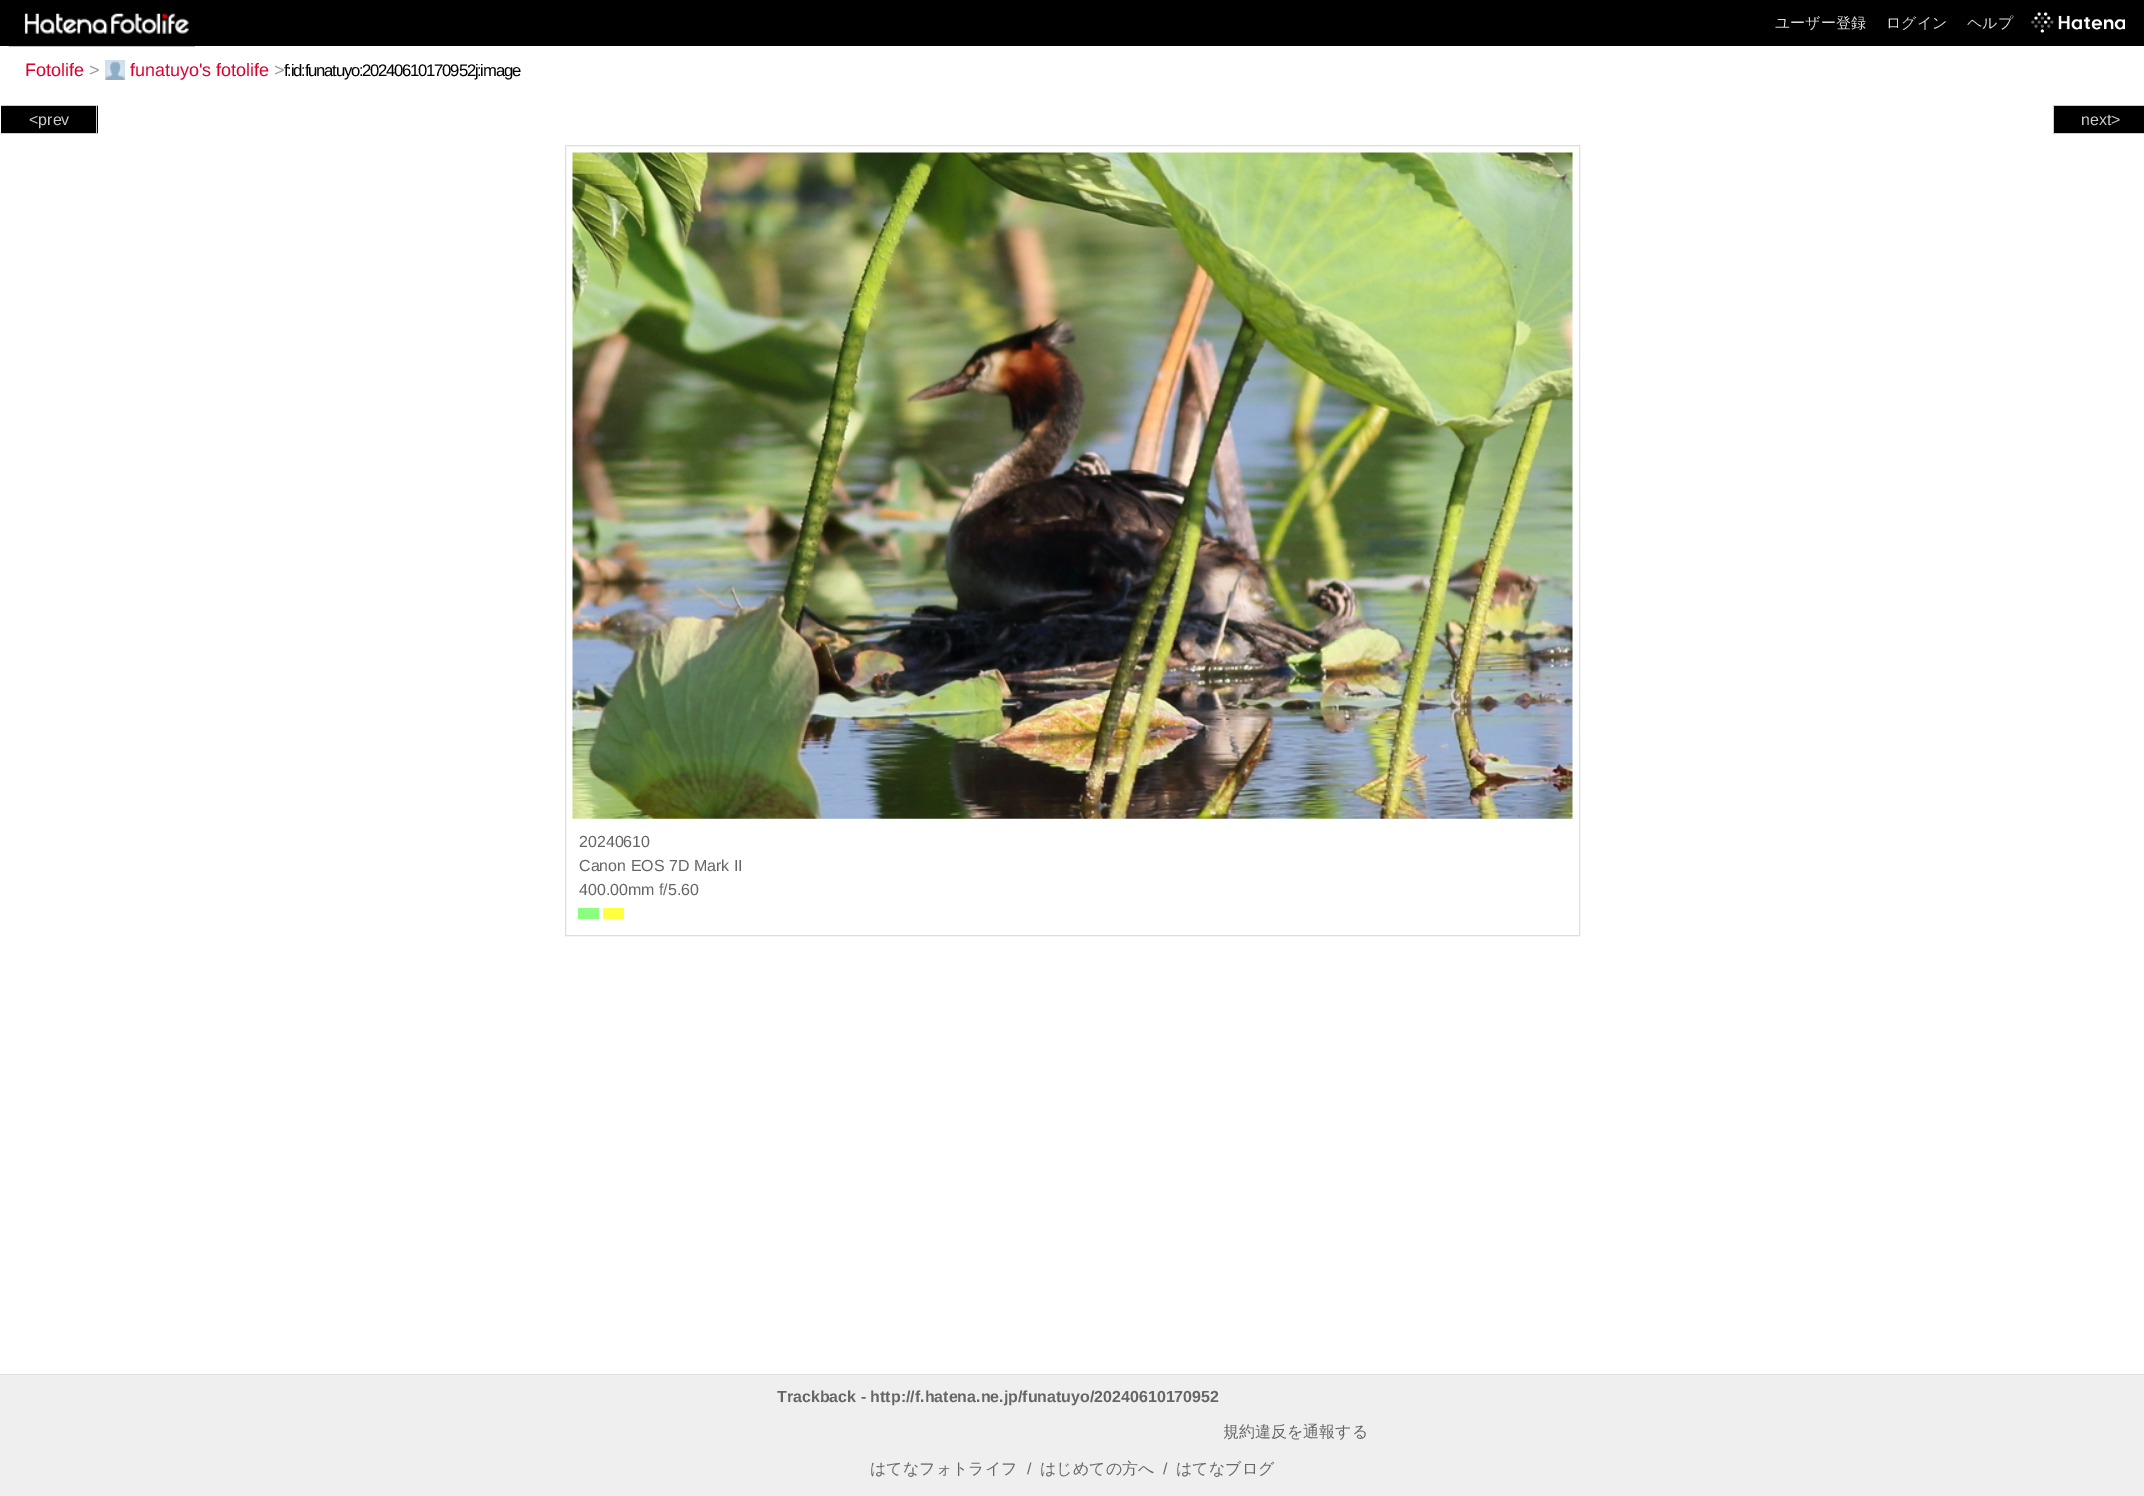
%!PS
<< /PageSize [2144 1496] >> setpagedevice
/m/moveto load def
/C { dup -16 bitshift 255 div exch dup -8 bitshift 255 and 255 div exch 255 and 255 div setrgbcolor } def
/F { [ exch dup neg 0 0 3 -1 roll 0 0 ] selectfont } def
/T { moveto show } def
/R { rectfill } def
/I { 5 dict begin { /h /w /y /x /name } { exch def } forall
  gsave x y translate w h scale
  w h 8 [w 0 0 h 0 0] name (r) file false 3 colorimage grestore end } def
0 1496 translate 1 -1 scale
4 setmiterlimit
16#EFEFEF C
0 0 2144 1496 R
16#000000 C
0 0 2144 46 R
16#FFFFFF C
0 46 2144 1328 R
(1.rgb) 8 13 104 34 I
(2.rgb) 111 13 84 34 I
/WenQuanYiZenHei-Medium 15 F
16#DDDDDD C
(ユーザー登録) 1775 28 T
(ログイン) 1886 28 T
(ヘルプ) 1967 28 T
(3.rgb) 2031 12 94 21 I
/LiberationSans-Regular 18 F
16#DE002F C
(Fotolife) 25 76 T
16#999999 C
(>) 89 76 T
(4.rgb) 105 60 20 20 I
16#DE002F C
(funatuyo's fotolife) 130 76 T
16#999999 C
(>) 274 76 T
/LiberationSans-Regular 16.7 F
16#000000 C
284 76 m -1.25 0 (f:id:funatuyo:20240610170952j:image) ashow
16#DEDEDE C
0 1374 2144 1 R
16#000000 C
1 106 97 27 R
16#CCCCCC C
1 105 97 1 R
96 105 1 29 R
1 133 97 1 R
/LiberationSans-Regular 16 F
(<prev) 29 125 T
16#000000 C
2054 106 90 27 R
16#CCCCCC C
2053 105 91 1 R
2053 133 91 1 R
2053 105 1 29 R
(next>) 2081 125 T
16#DEDEDE C
565.5 145.5 1014 790 rectstroke
(5.rgb) 572 152 1001 667 I
16#666666 C
(20240610) 579 847 T
(Canon EOS 7D Mark II) 579 871 T
(400.00mm f/5.60) 579 895 T
16#8AFF80 C
578 908 21 11 R
16#FFFF40 C
603 908 21 11 R
/LiberationSans-Bold 16 F
16#666666 C
(Trackback - http://f.hatena.ne.jp/funatuyo/20240610170952) 777 1402 T
/WenQuanYiZenHei-Medium 16 F
(規約違反を通報する) 1223 1437 T
(はてなフォトライフ) 870 1474 T
/LiberationSans-Regular 16 F
(/) 1027 1474 T
/WenQuanYiZenHei-Medium 16 F
(はじめての方へ) 1040 1474 T
/LiberationSans-Regular 16 F
(/) 1163 1474 T
/WenQuanYiZenHei-Medium 16 F
(はてなブログ) 1176 1474 T
showpage
